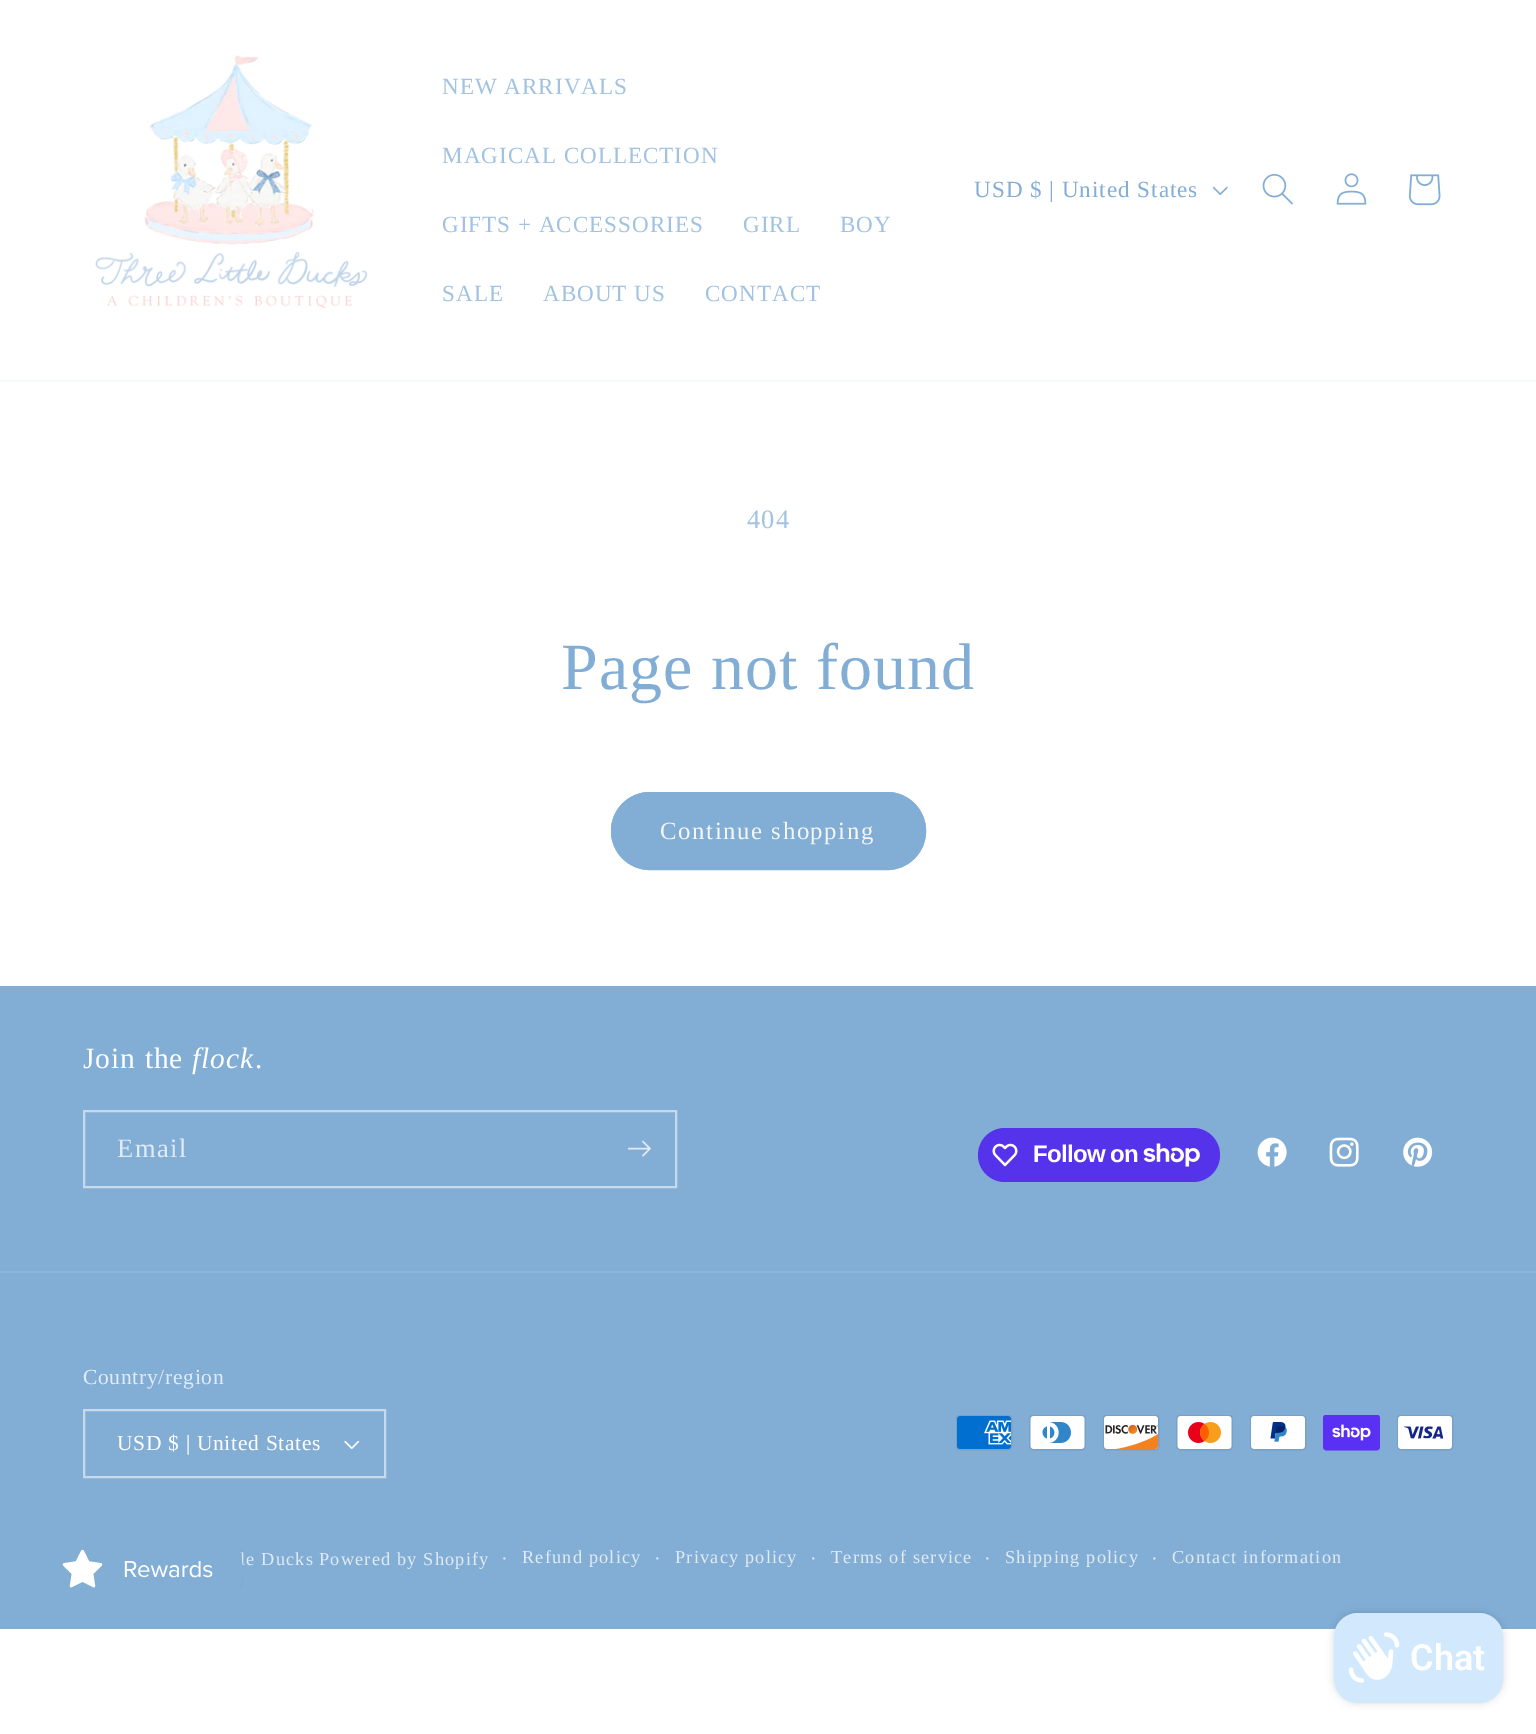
%!PS
<< /PageSize [1536 1734] /PageUsesTransparency true >> setpagedevice
/m/moveto load def
/f/fill load def
/s/stroke load def
/w/setlinewidth load def
/C { dup -16 bitshift 255 div exch dup -8 bitshift 255 and 255 div exch 255 and 255 div setrgbcolor } def
/F { [ exch dup neg 0 0 3 -1 roll 0 0 ] selectfont } def
/T { moveto show } def
/R { rectfill } def
/A { dup .setfillconstantalpha .setstrokeconstantalpha } def
/Q { 5 dict begin { /r /h /w /y /x } { exch def } forall
  x r add y moveto x w add y 2 copy h add r arct x w add y h add x 1 index r arct
  x y h add x y r arct x y 2 copy exch w add exch r arct closepath end } def
/S { 12 dict begin { /a /b /q /h /w /y /x } { exch def } forall gsave /was 0 def
  9 -2 -9 { dup b mul 4 div /e exch def 1 sub .425 mul 2.718 exch exp 1 add a .99 .min exch div /now exch def
    1 1 now sub 1 was sub div sub A /was now def
    w h .min e 2 mul add 0 gt { x e sub y e sub w e 2 mul add h e 2 mul add
      q e add b .6 mul add w h .min 2 div e add .min 0 .max Q fill } if } for grestore end } def
/I { 5 dict begin { /h /w /y /x /name } { exch def } forall
  gsave x y translate w h scale
  w h 8 [w 0 0 h 0 0] name (r) file false 3 colorimage grestore end } def
0 .pushpdf14devicefilter
0 1734 translate 1 -1 scale
4 setmiterlimit
16#FFFFFF C
0 0 1536 1734 R
16#F5F8FC C
0 380 1536 2 R
(1.rgb) 95 55 273 254 I
/LiberationSerif-Regular 23.1 F
16#A1C2E0 C
442 94 m 1 0 (NEW ARRIVALS) ashow
442 163 m 1 0 (MAGICAL COLLECTION) ashow
442 232 m 1 0 (GIFTS + ACCESSORIES) ashow
743 232 m 1 0 (GIRL) ashow
840 232 m 1 0 (BOY) ashow
442 301 m 1 0 (SALE) ashow
543 301 m 1 0 (ABOUT US) ashow
705 301 m 1 0 (CONTACT) ashow
16#82ADD5 C
974 197 m 1 0 (USD $ | United States) ashow
(2.rgb) 1212 186 16 9 I
(3.rgb) 1262 173 31 32 I
(4.rgb) 1336 173 31 32 I
(5.rgb) 1408 174 33 32 I
/LiberationSerif-Regular 26.5 F
16#A1C2E0 C
747 528 m 1 0 (404) ashow
/LiberationSerif-Regular 66 F
16#82ADD5 C
561 689 m 1 0 (Page not found) ashow
611 792 315 78 39 Q f
2 w
612 793 313 76 38 Q s
/LiberationSerif-Regular 24.75 F
16#F4F6F8 C
660 839 m 1.6 0 (Continue shopping) ashow
16#82ADD5 C
0 986 1536 643 R
/LiberationSerif-Regular 29.5 F
16#FFFFFF C
83 1068 m 1 0 (Join the) ashow
/LiberationSerif-Italic 29.5 F
192 1068 m 1 0 (flock) ashow
/LiberationSerif-Regular 29.5 F
255 1068 m 1 0 (.) ashow
16#C7DAEC C
84 1111 592 76 rectstroke
/LiberationSerif-Regular 26.5 F
16#E0EBF5 C
117 1157 m 1.6 0 (Email) ashow
(6.rgb) 628 1140 23 17 I
16#5433EB C
978 1128 242 54 27 Q f
(7.rgb) 992 1143 26 24 I
/LiberationSans-Bold 24 F
16#FFFFFF C
1033 1162 m -.75 0 (Follow on) ashow
(8.rgb) 1143 1143 57 24 I
(9.rgb) 1257 1137 30 30 I
(10.rgb) 1329 1137 30 30 I
(11.rgb) 1403 1137 30 30 I
16#8CB4D8 C
0 1271 1536 2 R
/LiberationSerif-Regular 21.5 F
16#E0EBF5 C
83 1384 m .7 0 (Country/region) ashow
(12.rgb) 344 1440 16 9 I
16#C7DAEC C
84 1410 301 67 rectstroke
16#FFFFFF C
117 1450 m .7 0 (USD $ | United States) ashow
(13.rgb) 956 1415 57 36 I
(14.rgb) 1029 1415 57 36 I
(15.rgb) 1103 1415 57 36 I
(16.rgb) 1176 1415 57 36 I
(17.rgb) 1250 1415 57 36 I
(18.rgb) 1323 1415 57 36 I
(19.rgb) 1397 1415 57 36 I
/LiberationSerif-Regular 18.25 F
16#E0EBF5 C
240 1565 m 1.2 0 (le Ducks) ashow
319 1565 m 1.2 0 (Powered by Shopify) ashow
/LiberationSerif-Regular 20 F
501 1565 m 1.2 0 (·) ashow
/LiberationSerif-Regular 18.25 F
522 1563 m 1.2 0 (Refund policy) ashow
/LiberationSerif-Regular 20 F
654 1565 m 1.2 0 (·) ashow
/LiberationSerif-Regular 18.25 F
675 1563 m 1.2 0 (Privacy policy) ashow
/LiberationSerif-Regular 20 F
810 1565 m 1.2 0 (·) ashow
/LiberationSerif-Regular 18.25 F
831 1563 m 1.2 0 (Terms of service) ashow
/LiberationSerif-Regular 20 F
984 1565 m 1.2 0 (·) ashow
/LiberationSerif-Regular 18.25 F
1005 1563 m 1.2 0 (Shipping policy) ashow
/LiberationSerif-Regular 20 F
1151 1565 m 1.2 0 (·) ashow
/LiberationSerif-Regular 18.25 F
1172 1563 m 1.2 0 (Contact information) ashow
(20.rgb) 62 1549 181 39 I
16#000000 C
1334 1613 169 90 24 4 .15 S
16#D2E9FD C
1334 1613 169 90 24 Q f
(21.rgb) 1348 1632 52 51 I
/Roboto-SemiBold 36 F
16#FFFFFF C
(Chat) 1410 1670 T
.poppdf14devicefilter showpage
